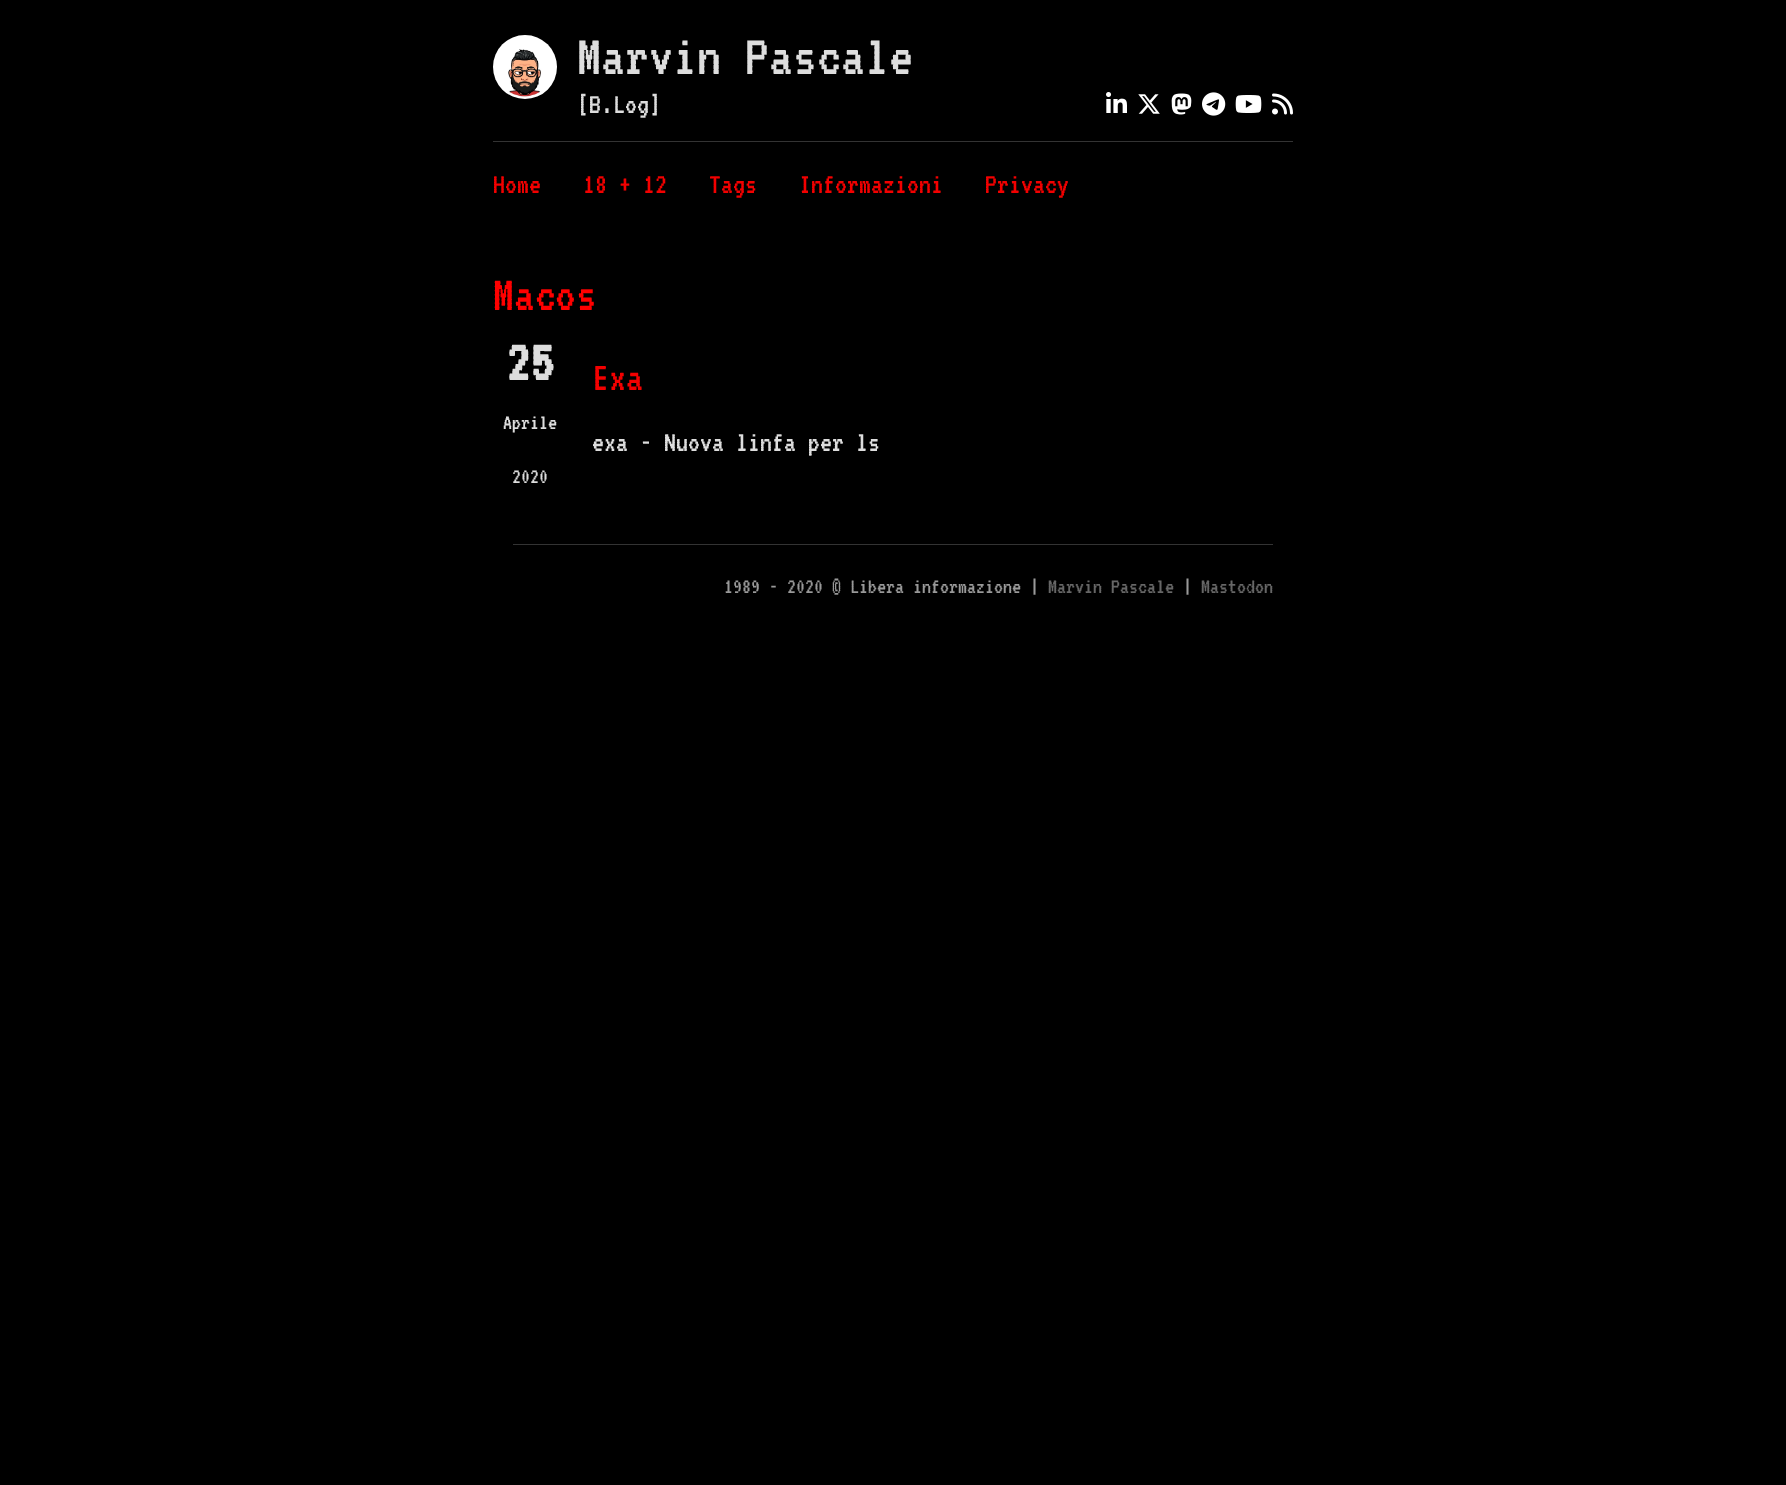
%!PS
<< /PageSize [1786 1485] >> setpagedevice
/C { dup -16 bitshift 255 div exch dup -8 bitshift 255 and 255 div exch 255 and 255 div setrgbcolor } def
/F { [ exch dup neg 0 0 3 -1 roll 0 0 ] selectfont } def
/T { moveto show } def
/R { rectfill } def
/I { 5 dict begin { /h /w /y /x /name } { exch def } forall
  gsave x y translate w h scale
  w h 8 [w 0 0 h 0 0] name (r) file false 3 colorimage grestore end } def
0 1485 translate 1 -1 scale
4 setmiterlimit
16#000000 C
0 0 1786 1485 R
(1.rgb) 493 35 64 64 I
/VT323-Regular 60 F
16#DDDDDD C
(Marvin Pascale) 577 74 T
/VT323-Regular 30 F
([B.Log]) 577 113 T
(2.rgb) 1106 92 21 21 I
(3.rgb) 1138 94 22 20 I
(4.rgb) 1171 93 21 22 I
(5.rgb) 1202 92 24 24 I
(6.rgb) 1235 95 27 18 I
(7.rgb) 1272 93 21 22 I
16#333333 C
493 141 800 1 R
16#F30000 C
(Home) 493 193 T
(18 + 12) 583 193 T
(Tags) 709 193 T
(Informazioni) 799 193 T
(Privacy) 985 193 T
/VT323-Regular 52 F
16#FF0000 C
(Macos) 493 310 T
/VT323-Bold 60 F
16#DDDDDD C
(25) 506 380 T
/VT323-Regular 22.5 F
(Aprile) 503 429 T
(2020) 512 483 T
/VT323-Regular 43 F
16#F30000 C
(Exa) 592 390 T
/VT323-Regular 30 F
16#DDDDDD C
(exa - Nuova linfa per ls) 592 451 T
16#333333 C
513 544 760 1 R
/VT323-Regular 22.5 F
16#999999 C
(1989 - 2020 © Libera informazione |) 724 593 T
16#666666 C
(Marvin Pascale) 1048 593 T
16#999999 C
(|) 1183 593 T
16#666666 C
(Mastodon) 1201 593 T
showpage
